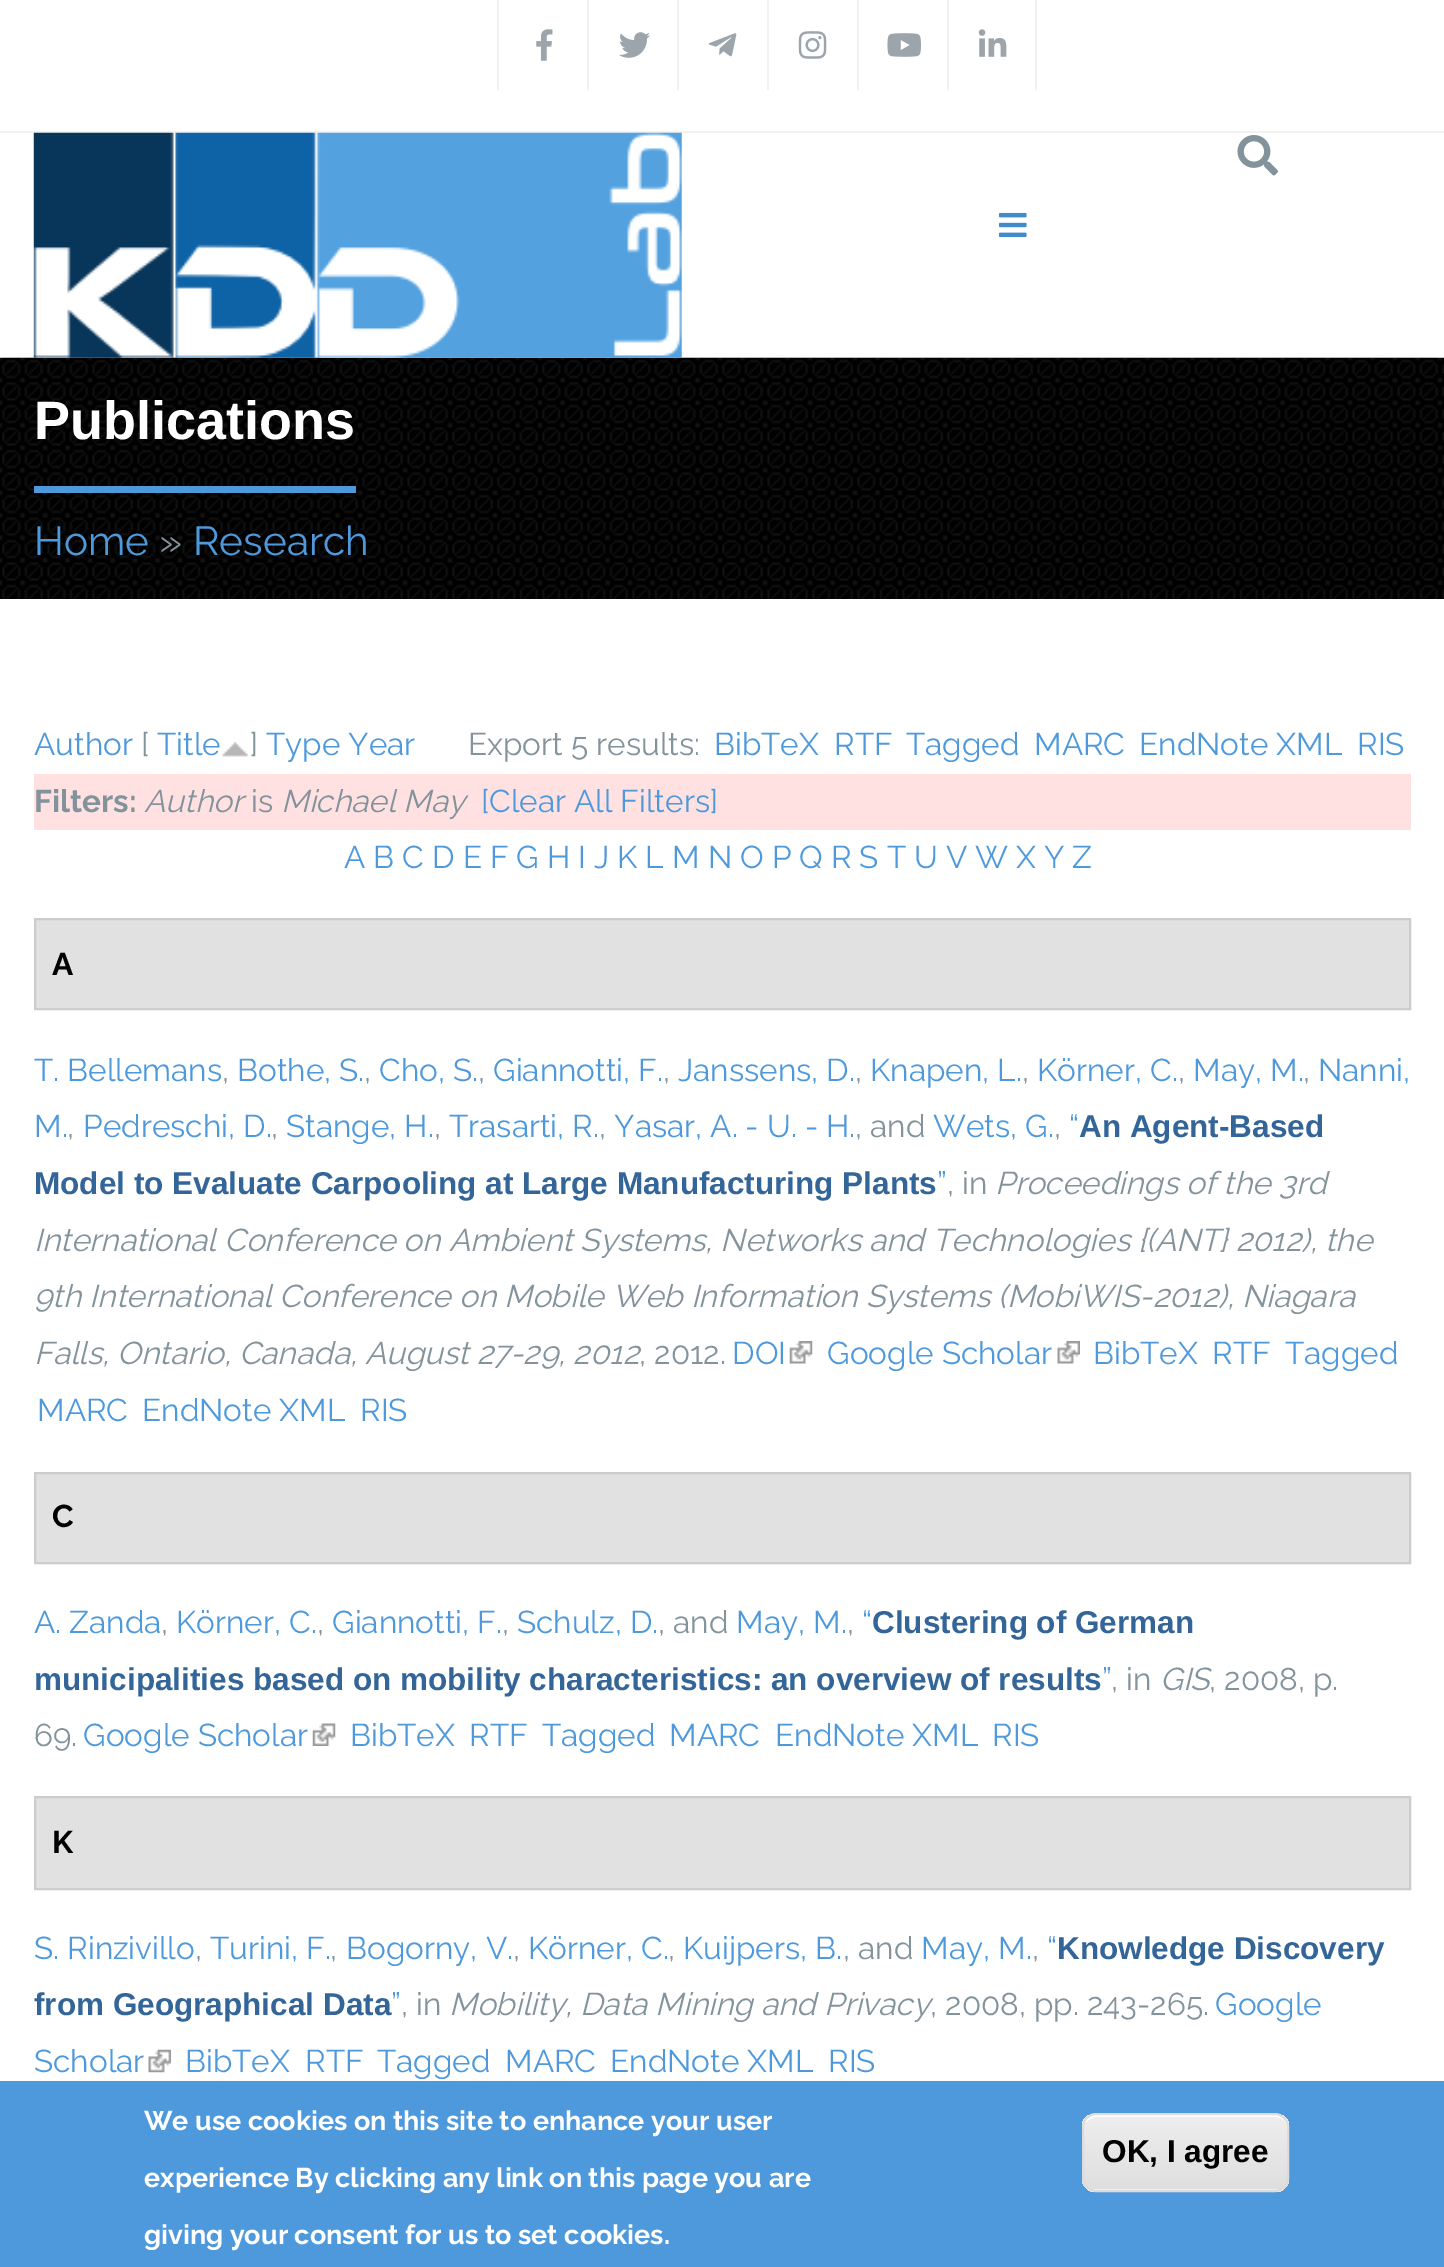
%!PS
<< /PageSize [1444 2267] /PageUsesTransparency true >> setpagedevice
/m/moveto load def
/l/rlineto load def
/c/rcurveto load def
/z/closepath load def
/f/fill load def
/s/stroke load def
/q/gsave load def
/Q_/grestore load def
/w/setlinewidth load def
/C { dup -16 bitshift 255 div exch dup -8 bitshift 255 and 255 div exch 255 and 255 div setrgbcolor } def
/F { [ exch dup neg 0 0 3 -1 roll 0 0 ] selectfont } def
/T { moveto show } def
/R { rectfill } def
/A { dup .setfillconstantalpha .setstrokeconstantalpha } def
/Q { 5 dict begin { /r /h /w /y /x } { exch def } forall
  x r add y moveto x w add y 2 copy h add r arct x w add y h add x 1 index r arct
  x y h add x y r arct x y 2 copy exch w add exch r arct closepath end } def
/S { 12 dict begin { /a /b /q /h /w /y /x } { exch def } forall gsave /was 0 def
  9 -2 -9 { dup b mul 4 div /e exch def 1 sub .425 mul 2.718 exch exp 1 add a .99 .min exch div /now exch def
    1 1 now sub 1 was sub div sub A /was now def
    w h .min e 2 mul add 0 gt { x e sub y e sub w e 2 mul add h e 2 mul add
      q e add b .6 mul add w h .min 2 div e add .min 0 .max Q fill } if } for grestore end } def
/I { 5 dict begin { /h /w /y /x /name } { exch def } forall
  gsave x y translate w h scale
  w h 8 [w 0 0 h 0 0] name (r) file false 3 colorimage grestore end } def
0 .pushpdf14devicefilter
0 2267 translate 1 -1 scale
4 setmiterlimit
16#FFFFFF C
0 0 1444 2267 R
16#F2F2F2 C
0 131 1444 2 R
497 0 2 90 R
(1.rgb) 536 29 17 32 I
587 0 2 90 R
(2.rgb) 619 32 31 26 I
677 0 2 90 R
(3.rgb) 708 33 29 24 I
767 0 2 90 R
(4.rgb) 798 31 29 28 I
857 0 2 90 R
(5.rgb) 887 33 34 24 I
1035 0 2 90 R
947 0 2 90 R
(6.rgb) 978 29 29 28 I
q
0 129 m 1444 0 l 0 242 l -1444 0 l z 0 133 m 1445 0 l 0 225 l -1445 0 l z eoclip newpath
16#808080 C
7 144 1431 212 0 4.5 1 S
Q_
(10.rgb) 0 357 1444 242 I
(7.rgb) 33 132 649 226 I
(8.rgb) 1237 135 41 41 I
(9.rgb) 999 212 28 26 I
16#4E99DC C
34 486 322 7 R
/LiberationSans-Bold 54 F
16#FFFFFF C
(Publications) 34 439 T
/Raleway-Regular 40.5 F
16#4E99DC C
(Home) 34 555 T
16#83939C C
(») 159 555 T
16#4E99DC C
(Research) 193 555 T
/Raleway-Regular 31.5 F
(Author) 34 755 T
16#83939C C
([) 141 755 T
16#4E99DC C
(Title) 157 755 T
(11.rgb) 222 742 26 15 I
16#83939C C
(]) 250 755 T
16#4E99DC C
(Type Year) 266 755 T
16#83939C C
(Export 5 results:) 468 755 T
16#4E99DC C
(BibTeX) 714 755 T
(RTF) 834 755 T
(Tagged) 906 755 T
(MARC) 1034 755 T
(EndNote XML) 1139 755 T
(RIS) 1357 755 T
16#FFE1E1 C
34 774 1377 56 R
/Raleway-Bold 31.5 F
16#83939C C
(Filters:) 34 812 T
/Raleway-Italic 31.5 F
(Author) 144 812 T
/Raleway-Regular 31.5 F
(is) 251 812 T
/Raleway-Italic 31.5 F
(Michael May) 281 812 T
/Raleway-Regular 31.5 F
16#4E99DC C
([Clear All Filters]) 481 812 T
(A B C D E F G H I J K L M N O P Q R S T U V W X Y Z) 344 868 T
16#E1E1E1 C
35 919 m 1375 0 l 0 90 l -1375 0 l z q f Q_
16#CCCCCC C
2 w
s
/Raleway-Bold 31.5 F
16#000000 C
(A) 52 975 T
/Raleway-Regular 31.5 F
16#4E99DC C
(T. Bellemans) 34 1081 T
16#83939C C
(,) 222 1081 T
16#4E99DC C
(Bothe, S.) 237 1081 T
16#83939C C
(,) 364 1081 T
16#4E99DC C
(Cho, S.) 379 1081 T
16#83939C C
(,) 478 1081 T
16#4E99DC C
(Giannotti, F.) 493 1081 T
16#83939C C
(,) 663 1081 T
16#4E99DC C
(Janssens, D.) 678 1081 T
16#83939C C
(,) 855 1081 T
16#4E99DC C
(Knapen, L.) 870 1081 T
16#83939C C
(,) 1022 1081 T
16#4E99DC C
(Körner, C.) 1037 1081 T
16#83939C C
(,) 1178 1081 T
16#4E99DC C
(May, M.) 1193 1081 T
16#83939C C
(,) 1303 1081 T
16#4E99DC C
(Nanni,) 1318 1081 T
(M.) 34 1137 T
16#83939C C
(,) 67 1137 T
16#4E99DC C
(Pedreschi, D.) 83 1137 T
16#83939C C
(,) 271 1137 T
16#4E99DC C
(Stange, H.) 286 1137 T
16#83939C C
(,) 434 1137 T
16#4E99DC C
(Trasarti, R.) 449 1137 T
16#83939C C
(,) 599 1137 T
16#4E99DC C
(Yasar, A. - U. - H.) 614 1137 T
16#83939C C
(, and) 855 1137 T
16#4E99DC C
(Wets, G.) 933 1137 T
16#83939C C
(,) 1054 1137 T
16#4E99DC C
(“) 1069 1137 T
/LiberationSans-Bold 31.5 F
16#336599 C
(An Agent-Based) 1079 1137 T
(Model to Evaluate Carpooling at Large Manufacturing Plants) 34 1194 T
/Raleway-Regular 31.5 F
16#4E99DC C
(”) 937 1194 T
16#83939C C
(, in) 947 1194 T
/Raleway-Italic 31.5 F
(Proceedings of the 3rd) 995 1194 T
(International Conference on Ambient Systems, Networks and Technologies {\(ANT} 2012\), the) 34 1251 T
(9th International Conference on Mobile Web Information Systems \(MobiWIS-2012\), Niagara) 34 1307 T
(Falls, Ontario, Canada, August 27-29, 2012) 34 1364 T
/Raleway-Regular 31.5 F
(, 2012.) 639 1364 T
16#4E99DC C
(DOI) 732 1364 T
(12.rgb) 789 1341 24 23 I
(Google Scholar) 827 1364 T
(13.rgb) 1057 1341 23 23 I
(BibTeX) 1093 1364 T
(RTF) 1212 1364 T
(Tagged) 1285 1364 T
(MARC) 37 1421 T
(EndNote XML) 142 1421 T
(RIS) 360 1421 T
16#E1E1E1 C
35 1473 m 1375 0 l 0 90 l -1375 0 l z q f Q_
16#CCCCCC C
s
/Raleway-Bold 31.5 F
16#000000 C
(C) 52 1527 T
/Raleway-Regular 31.5 F
16#4E99DC C
(A. Zanda) 34 1633 T
16#83939C C
(,) 161 1633 T
16#4E99DC C
(Körner, C.) 176 1633 T
16#83939C C
(,) 317 1633 T
16#4E99DC C
(Giannotti, F.) 332 1633 T
16#83939C C
(,) 502 1633 T
16#4E99DC C
(Schulz, D.) 517 1633 T
16#83939C C
(, and) 658 1633 T
16#4E99DC C
(May, M.) 736 1633 T
16#83939C C
(,) 847 1633 T
16#4E99DC C
(“) 862 1633 T
/LiberationSans-Bold 31.5 F
16#336599 C
(Clustering of German) 872 1633 T
(municipalities based on mobility characteristics: an overview of results) 34 1690 T
/Raleway-Regular 31.5 F
16#4E99DC C
(”) 1102 1690 T
16#83939C C
(, in) 1111 1690 T
/Raleway-Italic 31.5 F
(GIS) 1160 1690 T
/Raleway-Regular 31.5 F
(, 2008, p.) 1209 1690 T
(69.) 34 1746 T
16#4E99DC C
(Google Scholar) 83 1746 T
(14.rgb) 312 1723 24 23 I
(BibTeX) 350 1746 T
(RTF) 469 1746 T
(Tagged) 542 1746 T
(MARC) 669 1746 T
(EndNote XML) 775 1746 T
(RIS) 992 1746 T
16#E1E1E1 C
35 1797 m 1375 0 l 0 92 l -1375 0 l z q f Q_
16#CCCCCC C
s
/Raleway-Bold 31.5 F
16#000000 C
(K) 52 1853 T
/Raleway-Regular 31.5 F
16#4E99DC C
(S. Rinzivillo) 34 1959 T
16#83939C C
(,) 195 1959 T
16#4E99DC C
(Turini, F.) 210 1959 T
16#83939C C
(,) 330 1959 T
16#4E99DC C
(Bogorny, V.) 346 1959 T
16#83939C C
(,) 513 1959 T
16#4E99DC C
(Körner, C.) 528 1959 T
16#83939C C
(,) 668 1959 T
16#4E99DC C
(Kuijpers, B.) 683 1959 T
16#83939C C
(, and) 843 1959 T
16#4E99DC C
(May, M.) 921 1959 T
16#83939C C
(,) 1032 1959 T
16#4E99DC C
(“) 1047 1959 T
/LiberationSans-Bold 31.5 F
16#336599 C
(Knowledge Discovery) 1057 1959 T
(from Geographical Data) 34 2015 T
/Raleway-Regular 31.5 F
16#4E99DC C
(”) 391 2015 T
16#83939C C
(, in) 401 2015 T
/Raleway-Italic 31.5 F
(Mobility, Data Mining and Privacy) 449 2015 T
/Raleway-Regular 31.5 F
(, 2008, pp. 243-265.) 930 2015 T
16#4E99DC C
(Google) 1215 2015 T
(Scholar) 34 2072 T
(15.rgb) 148 2049 23 24 I
(BibTeX) 185 2072 T
(RTF) 305 2072 T
(Tagged) 377 2072 T
(MARC) 505 2072 T
(EndNote XML) 610 2072 T
(RIS) 828 2072 T
0 2081 1444 186 R
/Raleway-Bold 27 F
16#FFFFFF C
(We use cookies on this site to enhance your user) 144 2130 T
(experience By clicking any link on this page you are) 144 2187 T
(giving your consent for us to set cookies.) 144 2244 T
q
1082 2113 207 79 14 Q clip newpath
q 1082 2115 m 207 0 l 0 74 l -207 0 l z clip newpath
<< /ShadingType 2 /ColorSpace /DeviceRGB /Coords [1186 2115 1186 2189] /Extend [true true] /Function << /FunctionType 3 /Domain [0 1] /Functions [<< /FunctionType 2 /Domain [0 1] /C0 [.929 .929 .929] /C1 [.929 .929 .929] /N 1 >> << /FunctionType 2 /Domain [0 1] /C0 [.929 .929 .929] /C1 [.875 .875 .875] /N 1 >>] /Bounds [.05] /Encode [0 1 0 1] >> >> shfill Q_
q 1082 2189 m 207 0 l 0 3 l -207 0 l z clip newpath
<< /ShadingType 2 /ColorSpace /DeviceRGB /Coords [1186 2189 1186 2264] /Extend [true true] /Function << /FunctionType 3 /Domain [0 1] /Functions [<< /FunctionType 2 /Domain [0 1] /C0 [.929 .929 .929] /C1 [.929 .929 .929] /N 1 >> << /FunctionType 2 /Domain [0 1] /C0 [.929 .929 .929] /C1 [.875 .875 .875] /N 1 >>] /Bounds [.05] /Encode [0 1 0 1] >> >> shfill Q_
Q_
1096 2117 m 180 0 l 6 0 11 5 11 11 c 0 -2 l 0 -6 -5 -11 -11 -11 c -180 0 l -5 0 -9 3 -11 8 c 3 -3 7 -6 11 -6 c z f
16#DCDCDC C
1083 2114 205 77 13 Q s
/LiberationSans-Bold 31.5 F
16#000000 C
(OK, I agree) 1102 2162 T
.poppdf14devicefilter showpage
